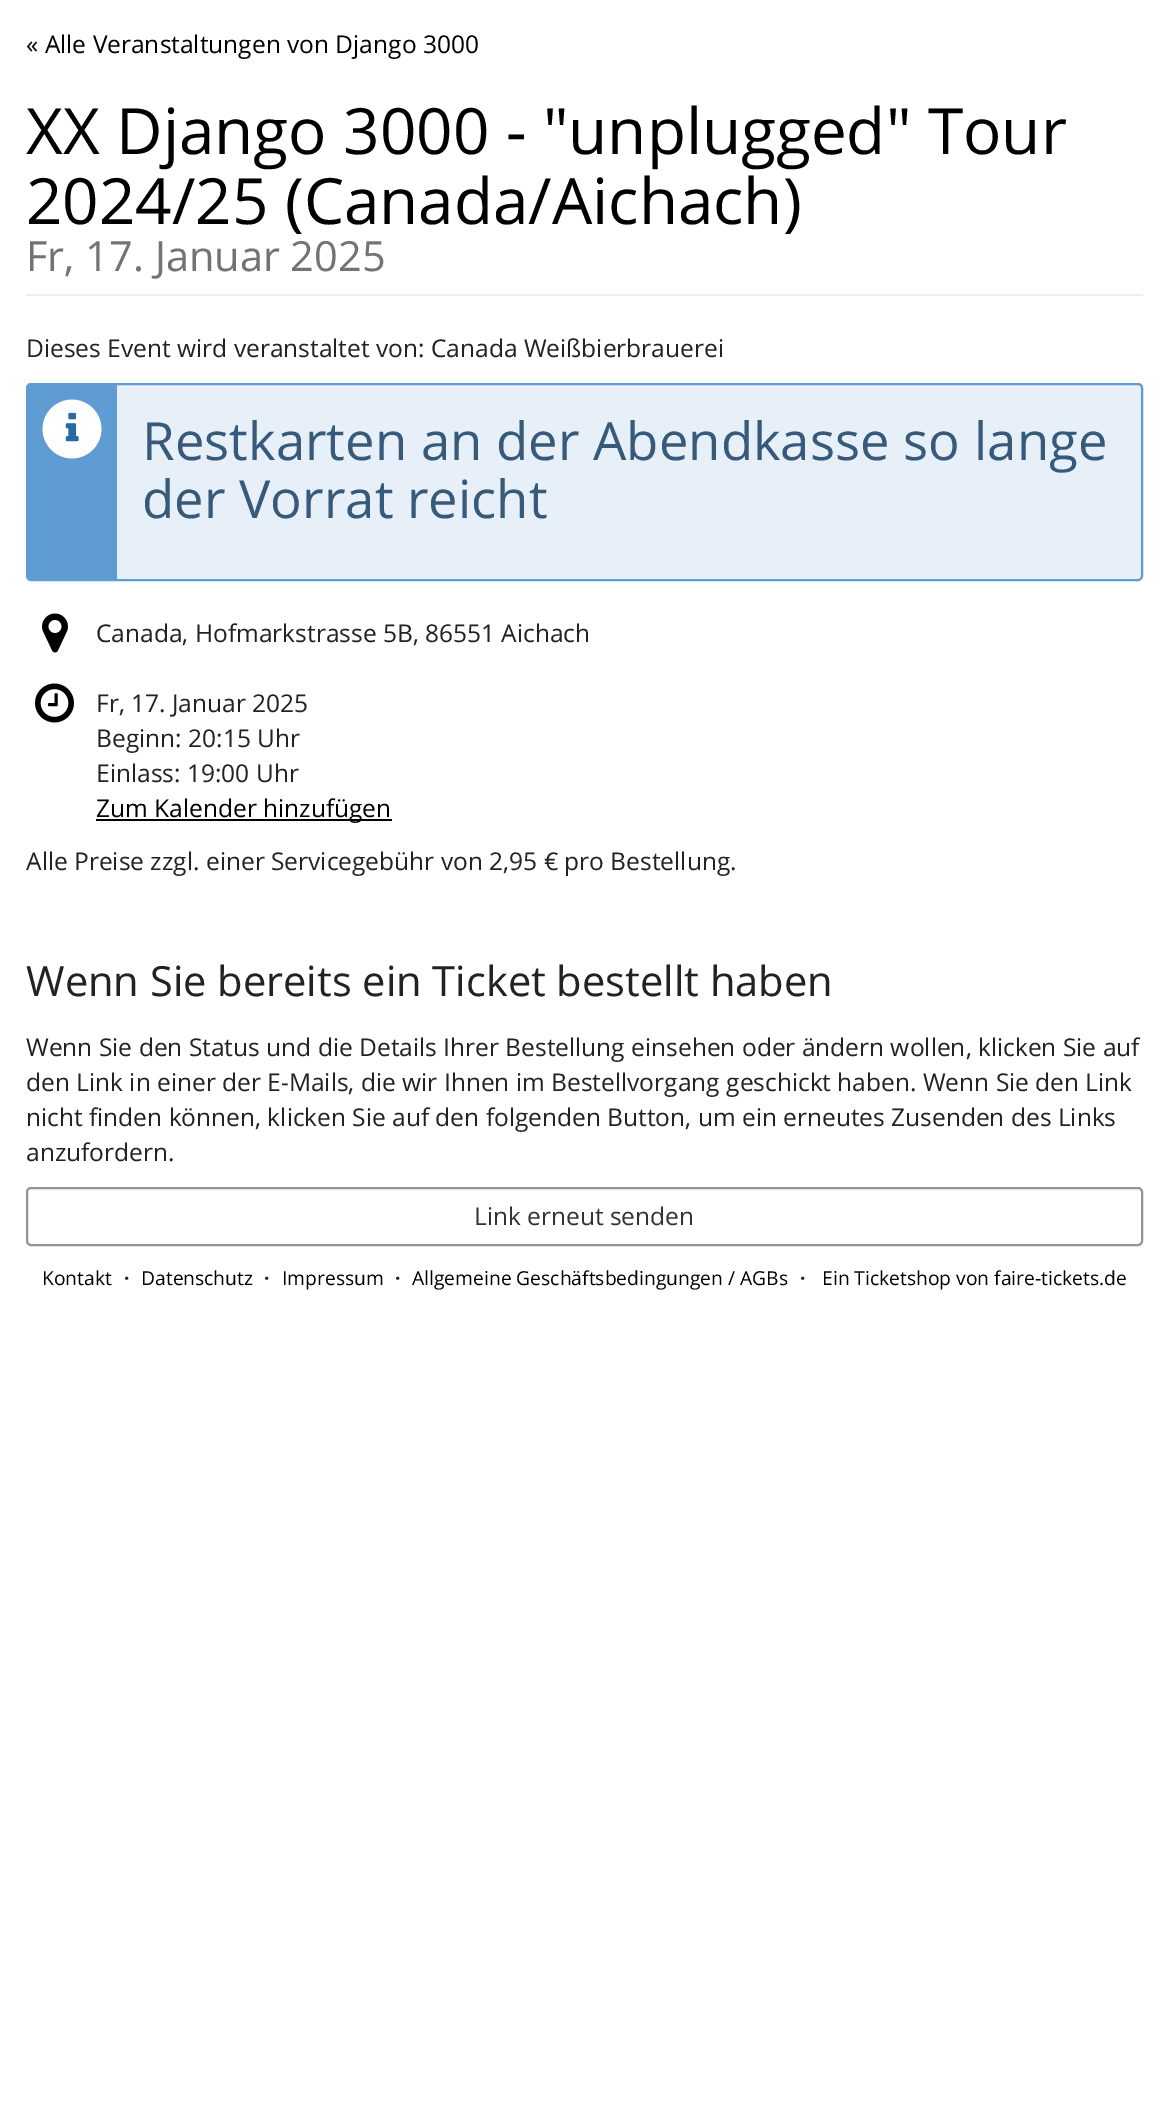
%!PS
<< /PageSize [1168 2117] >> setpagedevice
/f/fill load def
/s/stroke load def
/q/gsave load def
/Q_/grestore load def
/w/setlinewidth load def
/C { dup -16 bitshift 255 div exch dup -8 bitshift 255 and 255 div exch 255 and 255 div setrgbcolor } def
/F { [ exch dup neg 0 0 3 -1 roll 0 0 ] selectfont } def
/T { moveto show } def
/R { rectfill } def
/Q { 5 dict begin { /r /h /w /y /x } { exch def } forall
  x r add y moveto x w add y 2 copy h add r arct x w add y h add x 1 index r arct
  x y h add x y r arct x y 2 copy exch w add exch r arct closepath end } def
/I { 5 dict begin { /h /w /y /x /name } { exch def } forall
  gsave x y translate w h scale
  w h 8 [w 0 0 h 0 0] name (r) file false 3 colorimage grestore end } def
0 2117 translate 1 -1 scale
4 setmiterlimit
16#FFFFFF C
0 0 1168 2117 R
/OpenSans-Regular 24.5 F
16#000000 C
(« Alle Veranstaltungen von Django 3000) 26 53 T
16#EEEEEE C
26 294 1117 2 R
/OpenSans-Regular 63.75 F
16#000000 C
(XX Django 3000 - "unplugged" Tour) 26 154 T
(2024/25 \(Canada/Aichach\)) 26 224 T
/OpenSans-Regular 41.5 F
16#737373 C
(Fr, 17. Januar 2025) 26 271 T
/OpenSans-Regular 24.5 F
16#222222 C
(Dieses Event wird veranstaltet von: Canada Weißbierbrauerei) 26 357 T
16#E7F0F9 C
27 384 1115 196 4 Q q f Q_
16#5F9CD4 C
2 w
s
28 385 89 194 R
(1.rgb) 42 399 60 60 I
/OpenSans-Regular 52.7 F
16#375A7B C
(Restkarten an der Abendkasse so lange) 142 460 T
(der Vorrat reicht) 142 518 T
(2.rgb) 42 613 26 40 I
/OpenSans-Regular 24.5 F
16#222222 C
(Canada, Hofmarkstrasse 5B, 86551 Aichach) 96 642 T
(3.rgb) 35 683 39 40 I
(Fr, 17. Januar 2025) 96 712 T
(Beginn: 20:15 Uhr) 96 747 T
(Einlass: 19:00 Uhr) 96 782 T
16#000000 C
96 819 296 2 R
(Zum Kalender hinzufügen) 96 817 T
16#222222 C
(Alle Preise zzgl. einer Servicegebühr von 2,95 € pro Bestellung.) 26 870 T
/OpenSans-Regular 41.6 F
(Wenn Sie bereits ein Ticket bestellt haben) 26 996 T
/OpenSans-Regular 24.5 F
(Wenn Sie den Status und die Details Ihrer Bestellung einsehen oder ändern wollen, klicken Sie auf) 26 1056 T
(den Link in einer der E-Mails, die wir Ihnen im Bestellvorgang geschickt haben. Wenn Sie den Link) 26 1091 T
(nicht finden können, klicken Sie auf den folgenden Button, um ein erneutes Zusenden des Links) 26 1126 T
(anzufordern.) 26 1161 T
16#949494 C
27 1188 1115 57 4 Q s
16#333333 C
(Link erneut senden) 474 1225 T
/OpenSans-Regular 19.25 F
16#000000 C
(Kontakt) 42 1285 T
/OpenSans-Bold 19.25 F
16#222222 C
(·) 124 1285 T
/OpenSans-Regular 19.25 F
16#000000 C
(Datenschutz) 141 1285 T
/OpenSans-Bold 19.25 F
16#222222 C
(·) 264 1285 T
/OpenSans-Regular 19.25 F
16#000000 C
(Impressum) 282 1285 T
/OpenSans-Bold 19.25 F
16#222222 C
(·) 395 1285 T
/OpenSans-Regular 19.25 F
16#000000 C
(Allgemeine Geschäftsbedingungen / AGBs) 412 1285 T
/OpenSans-Bold 19.25 F
16#222222 C
(·) 800 1285 T
/OpenSans-Regular 19.25 F
16#000000 C
(Ein Ticketshop von faire-tickets.de) 822 1285 T
showpage
